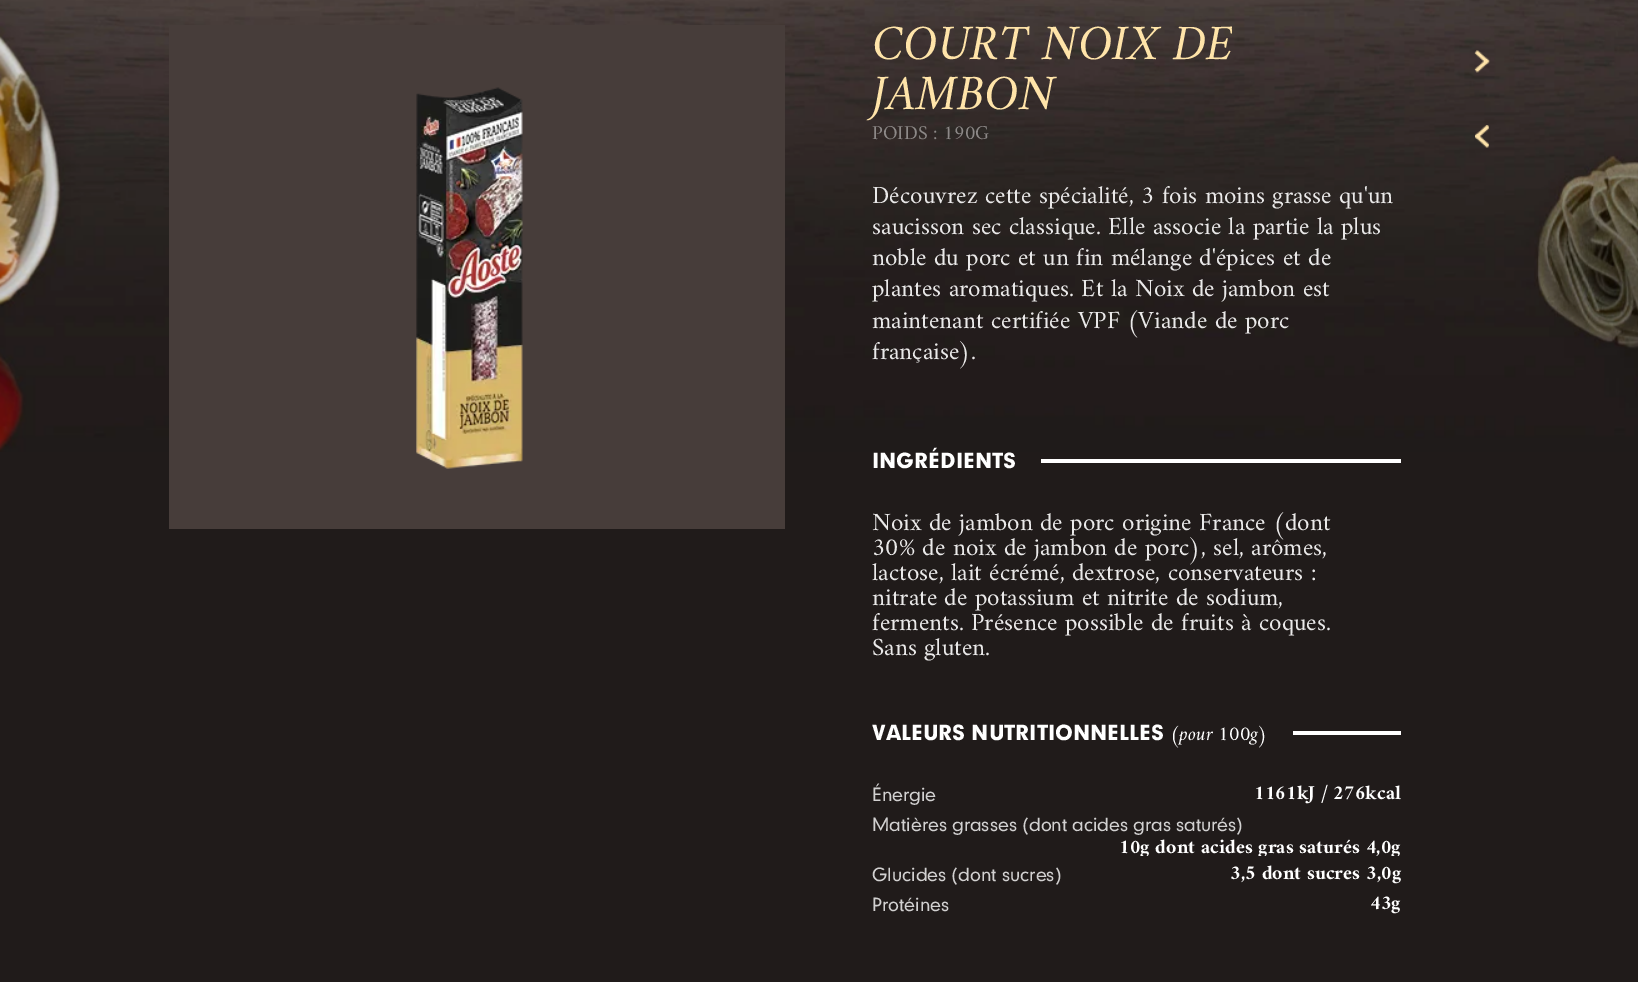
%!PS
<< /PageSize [1638 982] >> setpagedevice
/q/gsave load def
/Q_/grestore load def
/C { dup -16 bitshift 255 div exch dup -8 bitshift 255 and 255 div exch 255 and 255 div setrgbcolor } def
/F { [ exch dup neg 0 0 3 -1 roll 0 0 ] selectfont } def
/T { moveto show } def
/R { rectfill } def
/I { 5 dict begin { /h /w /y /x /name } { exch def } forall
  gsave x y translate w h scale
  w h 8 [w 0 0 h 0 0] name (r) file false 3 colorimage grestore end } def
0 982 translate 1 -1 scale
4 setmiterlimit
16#201B1A C
0 0 1638 982 R
(1.rgb) 0 0 1638 452 I
16#473D3A C
169 25 616 504 R
(2.rgb) 416 87 107 382 I
/Amiri-Italic 50 F
16#FFE4A9 C
(COURT NOIX DE) 872 59 T
(JAMBON) 872 109 T
(3.rgb) 1474 50 16 23 I
/Amiri-Regular 20 F
16#8D8988 C
(POIDS : 190G) 872 139 T
(4.rgb) 1475 125 14 23 I
/Amiri-Regular 25 F
16#EAE9E9 C
(Découvrez cette spécialité, 3 fois moins grasse qu'un) 872 203 T
(saucisson sec classique. Elle associe la partie la plus) 872 234 T
(noble du porc et un fin mélange d'épices et de) 872 265 T
(plantes aromatiques. Et la Noix de jambon est) 872 296 T
(maintenant certifiée VPF \(Viande de porc) 872 328 T
(française\).) 872 359 T
/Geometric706-Black 20 F
16#FFFFFF C
(INGRÉDIENTS) 872 468 T
1041 459 360 4 R
/Amiri-Regular 25 F
16#EAE9E9 C
(Noix de jambon de porc origine France \(dont) 872 530 T
(30% de noix de jambon de porc\), sel, arômes,) 872 555 T
(lactose, lait écrémé, dextrose, conservateurs :) 872 580 T
(nitrate de potassium et nitrite de sodium,) 872 605 T
(ferments. Présence possible de fruits à coques.) 872 630 T
(Sans gluten.) 872 655 T
/Geometric706-Black 20 F
16#FFFFFF C
(VALEURS NUTRITIONNELLES) 872 740 T
/Amiri-Italic 20 F
(\(pour 100g\)) 1170 740 T
1293 731 108 4 R
/Geometric706-Medium 17.5 F
16#D2D1D1 C
(Énergie) 872 801 T
/Amiri-Bold 20 F
16#FFFFFF C
(1161kJ / 276kcal) 1254 799 T
/Geometric706-Medium 17.5 F
16#D2D1D1 C
(Matières grasses \(dont acides gras saturés\)) 872 831 T
q
873 813 528 43 rectclip
/Amiri-Bold 20 F
16#FFFFFF C
(10g dont acides gras saturés 4,0g) 1119 853 T
Q_
(Glucides \(dont sucres\)) 872 881 T
/Amiri-Bold 20 F
16#FFFFFF C
(3,5 dont sucres 3,0g) 1230 879 T
/Geometric706-Medium 17.5 F
16#D2D1D1 C
(Protéines) 872 911 T
/Amiri-Bold 20 F
16#FFFFFF C
(43g) 1370 909 T
showpage
